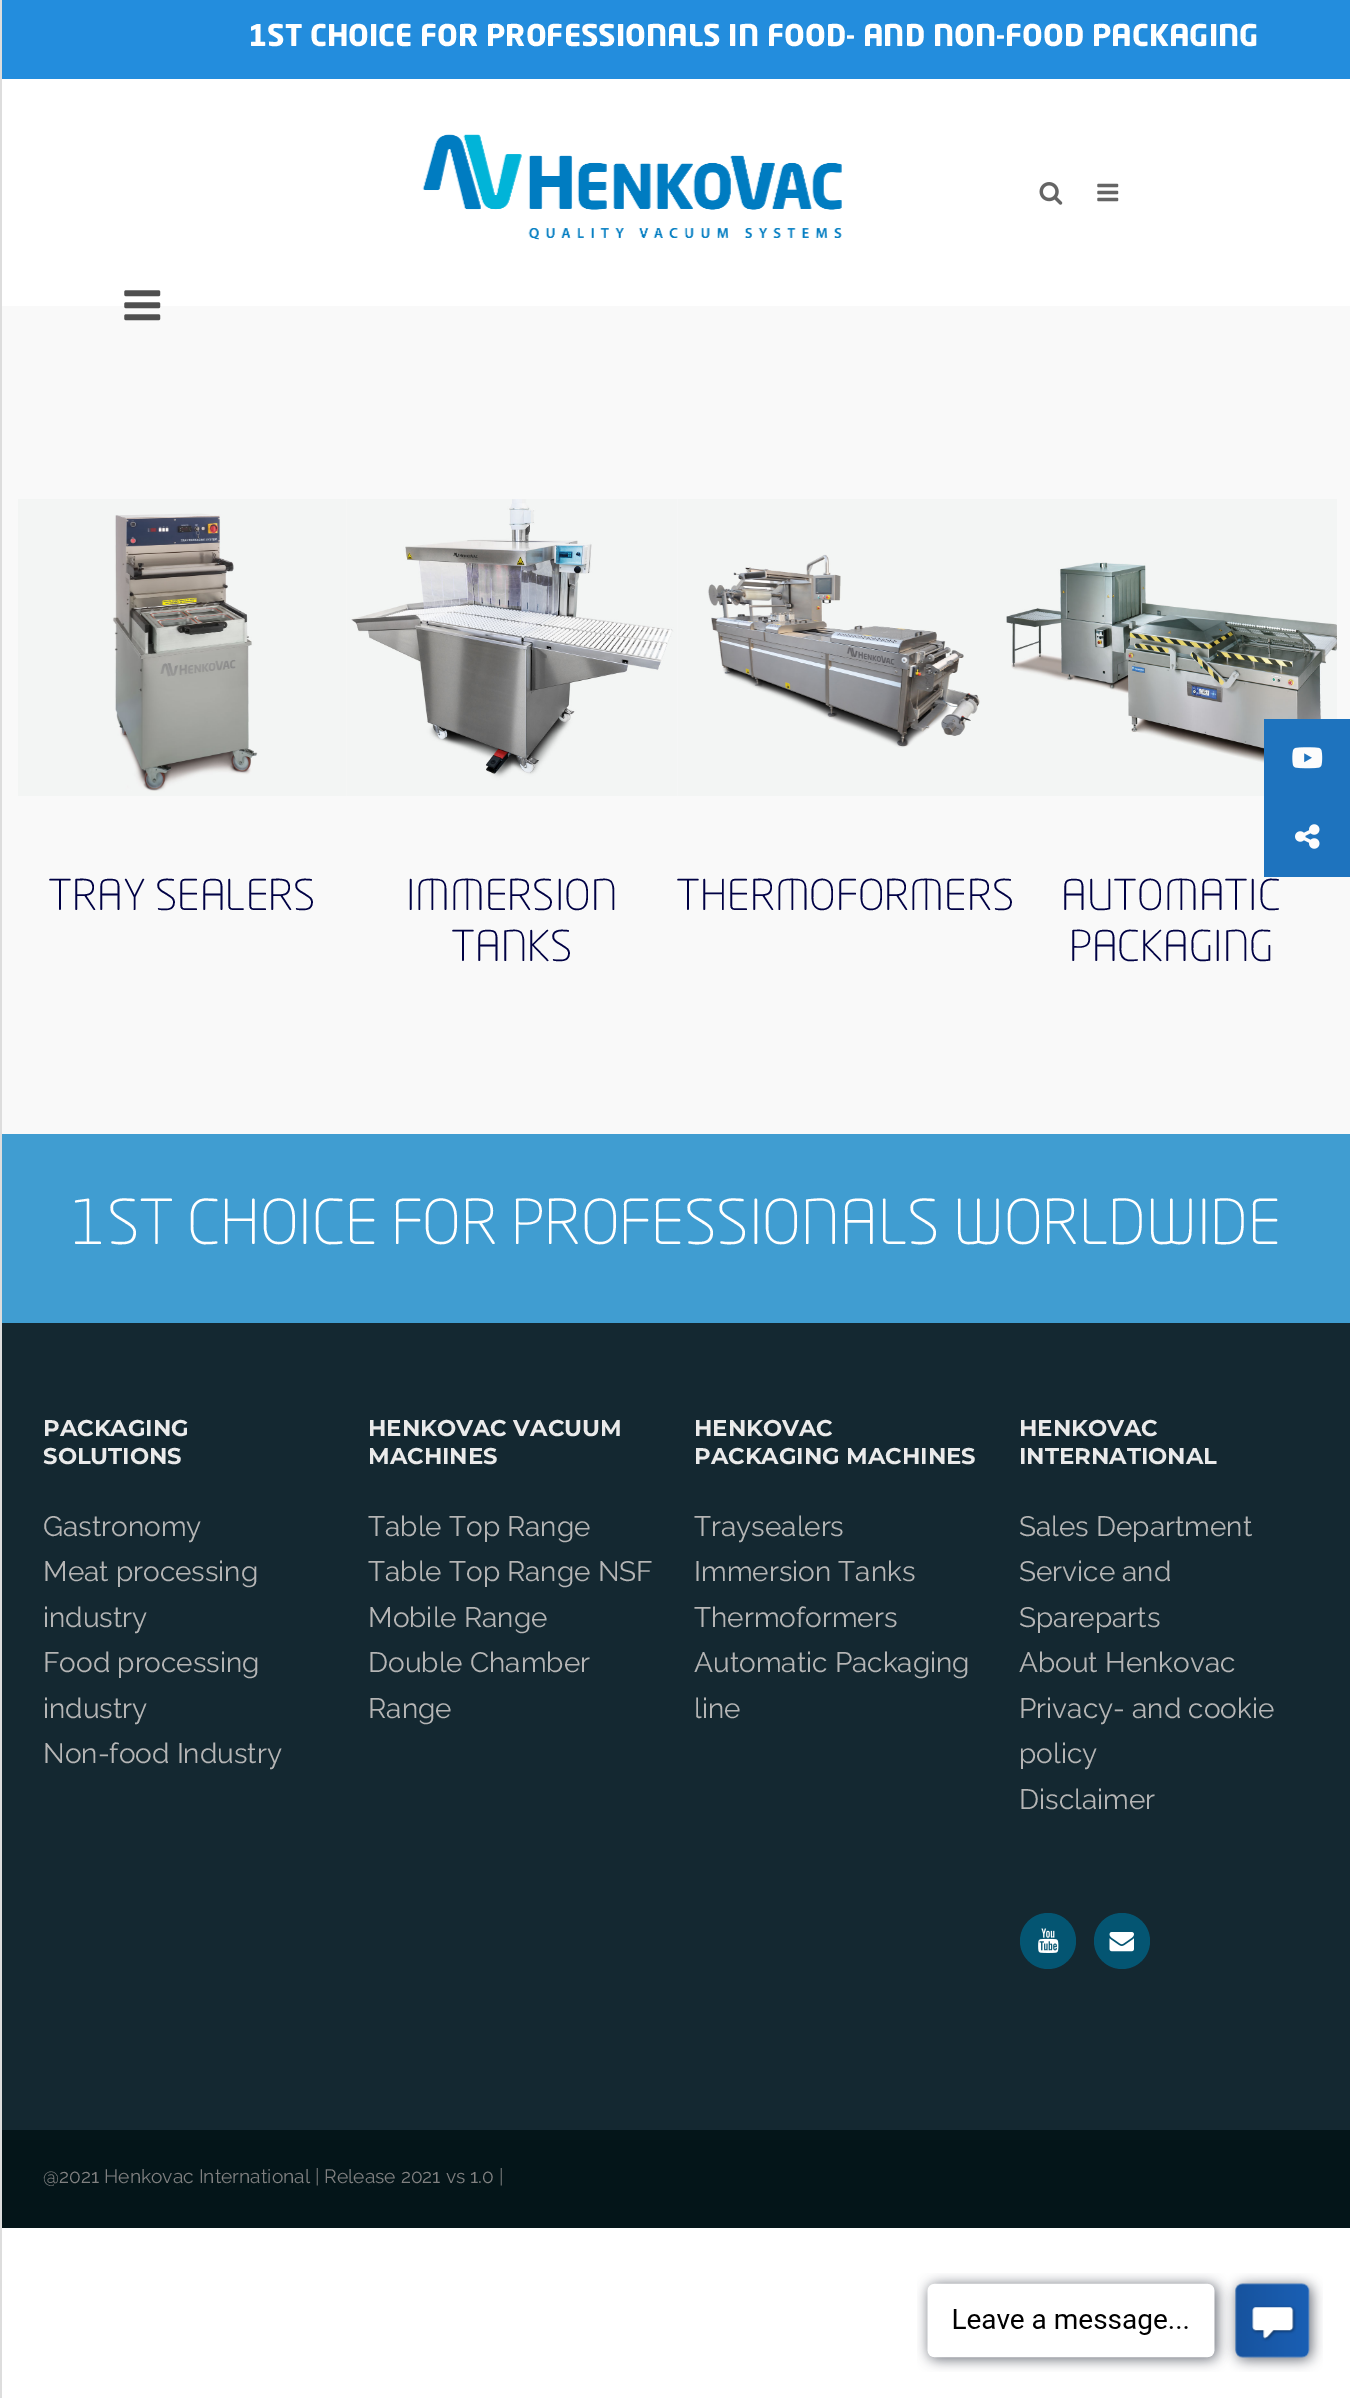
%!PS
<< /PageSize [1350 2398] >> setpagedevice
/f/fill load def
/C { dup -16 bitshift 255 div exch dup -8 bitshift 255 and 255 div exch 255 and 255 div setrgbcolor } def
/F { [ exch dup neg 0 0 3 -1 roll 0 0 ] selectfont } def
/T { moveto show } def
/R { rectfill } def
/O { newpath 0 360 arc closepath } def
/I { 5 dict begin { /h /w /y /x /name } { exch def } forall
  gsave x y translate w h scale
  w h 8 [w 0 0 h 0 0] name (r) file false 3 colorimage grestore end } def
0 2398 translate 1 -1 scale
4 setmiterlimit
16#DDDDDD C
0 0 1350 2398 R
16#FFFFFF C
2 79 1348 2319 R
16#238DDD C
2 0 1348 79 R
/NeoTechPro-Bold 29.75 F
16#FFFFFF C
(1ST CHOICE FOR PROFESSIONALS IN FOOD- AND NON-FOOD PACKAGING) 248 46 T
(1.rgb) 422 134 420 106 I
(2.rgb) 1039 182 24 23 I
(3.rgb) 1097 183 22 19 I
16#F9F9F9 C
2 306 1348 828 R
(4.rgb) 124 290 37 31 I
(5.rgb) 18 499 329 297 I
/NeoTechPro-Light 42 F
16#000144 C
(TRAY SEALERS) 48 910 T
(6.rgb) 347 499 330 297 I
(IMMERSION) 406 910 T
(TANKS) 451 961 T
(7.rgb) 677 499 329 297 I
(THERMOFORMERS) 676 910 T
(8.rgb) 1006 499 331 297 I
(AUTOMATIC) 1061 910 T
(PACKAGING) 1069 961 T
16#409DD1 C
2 1134 1348 189 R
/NeoTechPro-Light 61.25 F
16#FFFFFF C
(1ST CHOICE FOR PROFESSIONALS WORLDWIDE) 71 1244 T
16#142831 C
2 1323 1348 807 R
/Montserrat-Bold 22.75 F
16#EAEAEA C
(PACKAGING) 43 1436 T
(SOLUTIONS) 43 1464 T
/Raleway-Regular 28 F
16#B5B5B5 C
(Gastronomy) 43 1536 T
(Meat processing) 43 1581 T
(industry) 43 1627 T
(Food processing) 43 1672 T
(industry) 43 1718 T
(Non-food Industry) 43 1763 T
/Montserrat-Bold 22.75 F
16#EAEAEA C
(HENKOVAC VACUUM) 368 1436 T
(MACHINES) 368 1464 T
/Raleway-Regular 28 F
16#B5B5B5 C
(Table Top Range) 368 1536 T
(Table Top Range NSF) 368 1581 T
(Mobile Range) 368 1627 T
(Double Chamber) 368 1672 T
(Range) 368 1718 T
/Montserrat-Bold 22.75 F
16#EAEAEA C
(HENKOVAC) 694 1436 T
(PACKAGING MACHINES) 694 1464 T
/Raleway-Regular 28 F
16#B5B5B5 C
(Traysealers) 694 1536 T
(Immersion Tanks) 694 1581 T
(Thermoformers) 694 1627 T
(Automatic Packaging) 694 1672 T
(line) 694 1718 T
/Montserrat-Bold 22.75 F
16#EAEAEA C
(HENKOVAC) 1019 1436 T
(INTERNATIONAL) 1019 1464 T
/Raleway-Regular 28 F
16#B5B5B5 C
(Sales Department) 1019 1536 T
(Service and) 1019 1581 T
(Spareparts) 1019 1627 T
(About Henkovac) 1019 1672 T
(Privacy- and cookie) 1019 1718 T
(policy) 1019 1763 T
(Disclaimer) 1019 1809 T
16#045572 C
1048 1941 28 O f
(9.rgb) 1038 1928 21 25 I
1122 1941 28 O f
(10.rgb) 1109 1932 25 20 I
16#041519 C
2 2130 1348 98 R
/Raleway-Regular 19.25 F
16#818181 C
(@2021 Henkovac International | Release 2021 vs 1.0 |) 43 2183 T
16#1E73BE C
1264 719 86 158 R
(11.rgb) 1292 747 31 22 I
(12.rgb) 1295 824 25 25 I
(13.rgb) 917 2273 406 99 I
showpage
